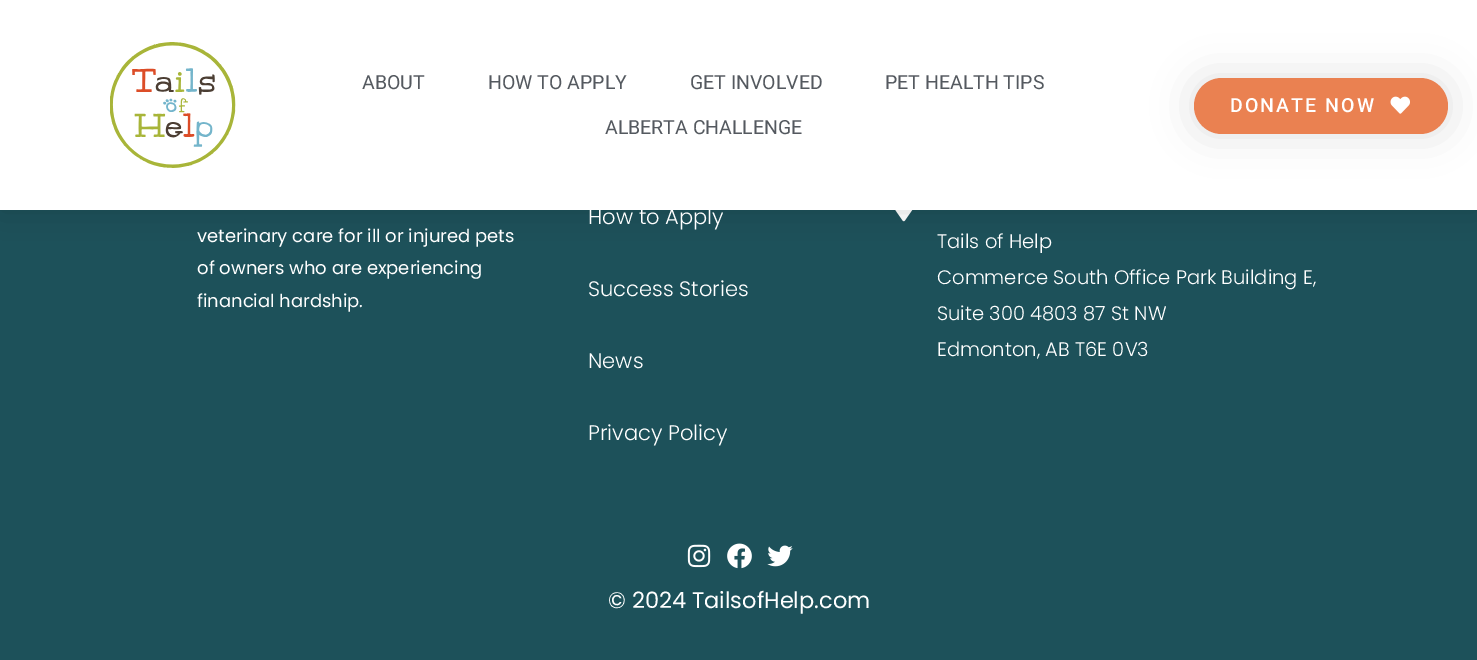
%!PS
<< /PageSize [1477 660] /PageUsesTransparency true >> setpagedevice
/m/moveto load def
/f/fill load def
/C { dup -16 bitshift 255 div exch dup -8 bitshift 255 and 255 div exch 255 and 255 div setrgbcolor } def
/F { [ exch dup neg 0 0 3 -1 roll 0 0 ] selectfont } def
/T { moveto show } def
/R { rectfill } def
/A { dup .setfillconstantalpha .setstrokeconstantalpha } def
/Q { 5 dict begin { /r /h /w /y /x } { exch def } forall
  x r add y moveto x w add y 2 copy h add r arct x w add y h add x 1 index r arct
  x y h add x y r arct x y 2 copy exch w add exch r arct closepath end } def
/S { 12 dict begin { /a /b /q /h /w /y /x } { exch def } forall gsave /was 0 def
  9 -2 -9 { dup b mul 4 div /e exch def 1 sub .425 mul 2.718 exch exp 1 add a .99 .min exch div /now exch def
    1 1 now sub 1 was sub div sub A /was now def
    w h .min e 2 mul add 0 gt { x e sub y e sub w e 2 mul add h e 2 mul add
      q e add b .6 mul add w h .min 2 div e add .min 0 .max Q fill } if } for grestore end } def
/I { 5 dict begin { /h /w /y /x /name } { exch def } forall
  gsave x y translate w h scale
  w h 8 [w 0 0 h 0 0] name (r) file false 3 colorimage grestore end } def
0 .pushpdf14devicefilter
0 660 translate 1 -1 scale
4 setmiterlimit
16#1D515A C
0 0 1477 660 R
(3.rgb) 895 210 18 12 I
16#000000 C
0 0 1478 210 0 18 .15 S
16#FFFFFF C
0 0 1477 210 R
(1.rgb) 110 42 126 126 I
/Roboto-Regular 19.5 F
16#54595F C
(ABOUT) 362 89 T
(HOW TO APPLY) 488 89 T
(GET INVOLVED) 690 89 T
(PET HEALTH TIPS) 885 89 T
(ALBERTA CHALLENGE) 605 134 T
16#000000 C
1194 78 254 56 28 20 .12 S
16#EA8151 C
1194 78 254 56 28 Q f
/Roboto-Medium 19.5 F
16#FFFFFF C
1230 112 m 2.1 0 (DONATE NOW) ashow
(2.rgb) 1390 96 20 18 I
/Poppins-Regular 18 F
(veterinary care for ill or injured pets) 197 242 T
(of owners who are experiencing) 197 274 T
(financial hardship.) 197 307 T
/Poppins-Light 21 F
(How to Apply) 588 224 T
(Success Stories) 588 296 T
(News) 588 368 T
(Privacy Policy) 588 440 T
/Poppins-Light 19.5 F
(Tails of Help) 937 248 T
(Commerce South Office Park Building E,) 937 284 T
(Suite 300 4803 87 St NW) 937 320 T
(Edmonton, AB T6E 0V3) 937 356 T
(4.rgb) 687 544 24 24 I
(5.rgb) 727 543 25 26 I
(6.rgb) 767 545 26 22 I
/Poppins-Regular 22.5 F
(© 2024 TailsofHelp.com) 608 608 T
.poppdf14devicefilter showpage
